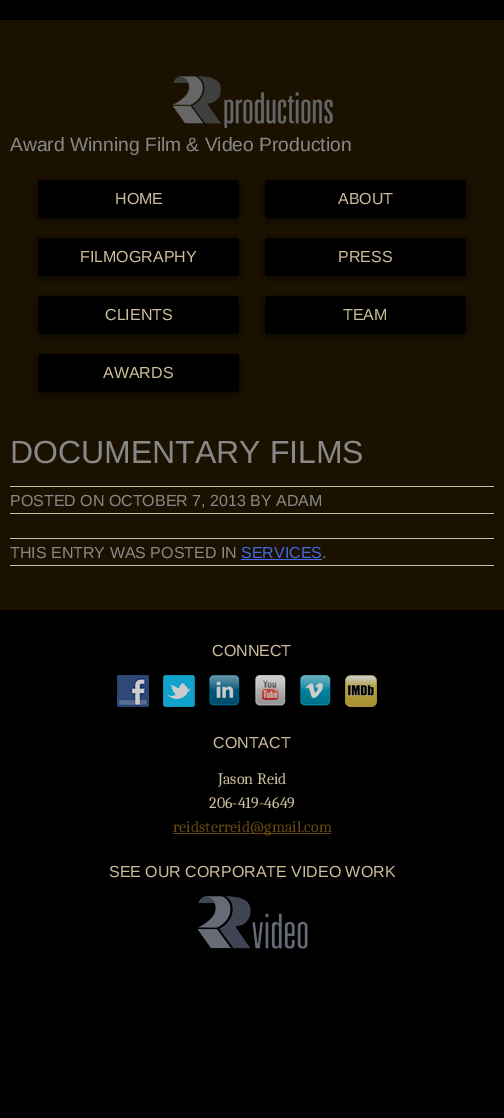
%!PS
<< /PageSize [504 1118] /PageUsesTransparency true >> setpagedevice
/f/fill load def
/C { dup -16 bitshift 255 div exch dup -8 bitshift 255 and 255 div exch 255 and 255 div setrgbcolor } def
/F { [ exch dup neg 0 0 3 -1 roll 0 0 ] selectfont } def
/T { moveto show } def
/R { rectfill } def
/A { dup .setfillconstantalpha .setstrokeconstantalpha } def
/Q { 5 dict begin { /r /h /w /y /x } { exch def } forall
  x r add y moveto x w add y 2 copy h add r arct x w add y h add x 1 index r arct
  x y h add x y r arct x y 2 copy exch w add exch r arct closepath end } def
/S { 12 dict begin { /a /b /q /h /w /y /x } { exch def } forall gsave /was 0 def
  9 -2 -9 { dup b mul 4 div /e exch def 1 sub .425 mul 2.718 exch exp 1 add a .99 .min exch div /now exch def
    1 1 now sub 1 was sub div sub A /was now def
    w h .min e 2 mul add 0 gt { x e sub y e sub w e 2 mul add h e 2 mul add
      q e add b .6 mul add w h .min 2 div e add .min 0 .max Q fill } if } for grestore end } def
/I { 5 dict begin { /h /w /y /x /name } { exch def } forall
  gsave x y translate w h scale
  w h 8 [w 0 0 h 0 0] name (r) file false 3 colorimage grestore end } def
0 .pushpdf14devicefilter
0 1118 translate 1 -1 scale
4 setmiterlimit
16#000000 C
0 0 504 1118 R
16#1A1101 C
0 20 504 590 R
(1.rgb) 172 76 161 52 I
/LiberationSans-Regular 19.25 F
16#888888 C
(Award Winning Film & Video Production) 10 151 T
16#000000 C
40 184 197 34 1 4 1 S
38 180 201 38 3 Q f
/LiberationSans-Regular 16 F
16#CCBD9B C
(HOME) 115 204 T
16#000000 C
267 184 197 34 1 4 1 S
265 180 201 38 3 Q f
16#CCBD9B C
(ABOUT) 338 204 T
16#000000 C
40 242 197 34 1 4 1 S
38 238 201 38 3 Q f
16#CCBD9B C
(FILMOGRAPHY) 80 262 T
16#000000 C
267 242 197 34 1 4 1 S
265 238 201 38 3 Q f
16#CCBD9B C
(PRESS) 338 262 T
16#000000 C
40 300 197 34 1 4 1 S
38 296 201 38 3 Q f
16#CCBD9B C
(CLIENTS) 105 320 T
16#000000 C
267 300 197 34 1 4 1 S
265 296 201 38 3 Q f
16#CCBD9B C
(TEAM) 343 320 T
16#000000 C
40 358 197 34 1 4 1 S
38 354 201 38 3 Q f
16#CCBD9B C
(AWARDS) 103 378 T
/LiberationSans-Regular 32 F
16#888888 C
(DOCUMENTARY FILMS) 10 463 T
16#CCBD9B C
10 486 484 1 R
10 513 484 1 R
/LiberationSans-Regular 16 F
16#888888 C
(POSTED ON OCTOBER 7, 2013 BY ADAM) 10 506 T
16#CCBD9B C
10 538 484 1 R
10 565 484 1 R
16#888888 C
(THIS ENTRY WAS POSTED IN) 10 558 T
16#4169E1 C
(SERVICES) 241 558 T
241 559 81 1 R
16#888888 C
(.) 322 558 T
16#CCBD9B C
(CONNECT) 212 656 T
(2.rgb) 117 675 32 32 I
(3.rgb) 163 675 32 32 I
(4.rgb) 209 675 31 31 I
(5.rgb) 255 675 31 31 I
(6.rgb) 300 675 31 31 I
(7.rgb) 345 675 32 32 I
(CONTACT) 213 748 T
/Caladea-Regular 16 F
(Jason Reid) 218 784 T
(206-419-4649) 209 808 T
16#66470E C
173 833 158 1 R
(reidsterreid@gmail.com) 173 832 T
/LiberationSans-Regular 16 F
16#CCBD9B C
(SEE OUR CORPORATE VIDEO WORK) 109 877 T
(8.rgb) 197 896 111 53 I
.poppdf14devicefilter showpage
